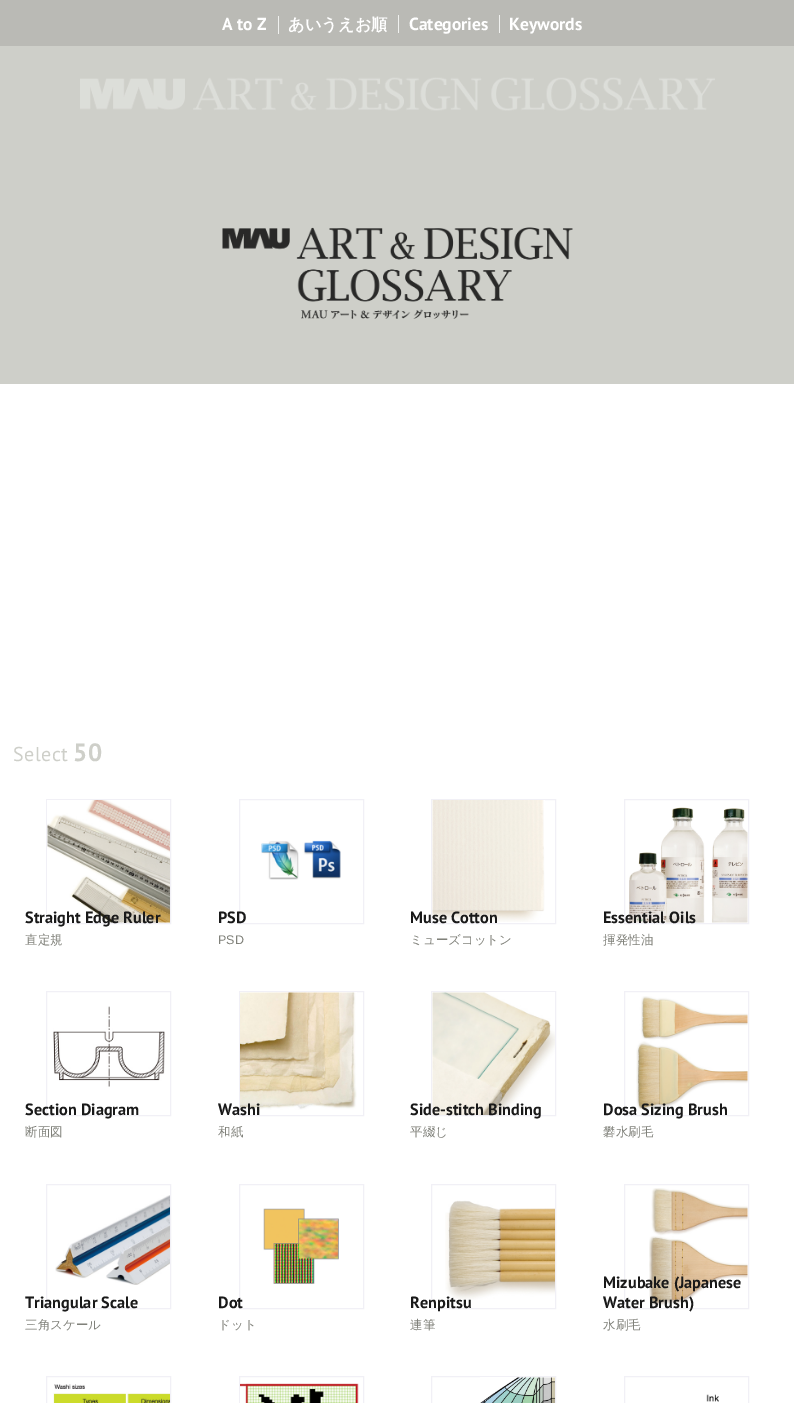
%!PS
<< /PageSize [794 1403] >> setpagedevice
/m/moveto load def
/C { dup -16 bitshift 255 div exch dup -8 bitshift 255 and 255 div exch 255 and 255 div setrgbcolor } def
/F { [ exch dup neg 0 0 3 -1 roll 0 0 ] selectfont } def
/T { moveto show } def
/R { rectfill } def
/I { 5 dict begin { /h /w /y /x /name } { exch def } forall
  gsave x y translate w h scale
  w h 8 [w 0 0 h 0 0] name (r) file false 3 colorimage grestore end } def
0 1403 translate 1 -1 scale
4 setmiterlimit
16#CECFC9 C
0 0 794 1403 R
16#BABAB5 C
0 0 794 46 R
/PTSans-Bold 17.5 F
16#FFFFFF C
(A to Z) 222 30 T
16#F0F1EF C
278 16 1 18 R
/WenQuanYiZenHei-Bold 16.25 F
16#FFFFFF C
(あいうえお順) 288 30 T
16#F0F1EF C
398 15 1 18 R
/PTSans-Bold 17.5 F
16#FFFFFF C
(Categories) 409 30 T
16#F0F1EF C
499 15 1 18 R
16#FFFFFF C
(Keywords) 509 30 T
(1.rgb) 80 77 635 34 I
(2.rgb) 222 227 351 92 I
0 384 794 1019 R
/PTSans-Regular 20 F
16#CECFC9 C
13 761 m .5 0 (Select) ashow
/PTSans-Bold 25 F
73 761 m .5 0 (50) ashow
16#F1F0F6 C
46.5 799.5 124 124 rectstroke
(3.rgb) 47 800 123 123 I
/PTSans-Bold 16.25 F
16#191919 C
(Straight Edge Ruler) 25 923 T
/WenQuanYiZenHei-Medium 12.5 F
16#80817A C
(直定規) 25 944 T
16#F1F0F6 C
239.5 799.5 124 124 rectstroke
(4.rgb) 261 840 80 40 I
/PTSans-Bold 16.25 F
16#191919 C
(PSD) 218 923 T
/LiberationSans-Regular 12.5 F
16#80817A C
(PSD) 218 944 T
16#F1F0F6 C
431.5 799.5 124 124 rectstroke
(5.rgb) 432 800 113 122 I
/PTSans-Bold 16.25 F
16#191919 C
(Muse Cotton) 410 923 T
/WenQuanYiZenHei-Medium 12.5 F
16#80817A C
(ミューズコットン) 410 944 T
16#F1F0F6 C
624.5 799.5 124 124 rectstroke
(6.rgb) 629 807 119 116 I
/PTSans-Bold 16.25 F
16#191919 C
(Essential Oils) 603 923 T
/WenQuanYiZenHei-Medium 12.5 F
16#80817A C
(揮発性油) 603 944 T
16#F1F0F6 C
46.5 991.5 124 124 rectstroke
(7.rgb) 53 1006 112 81 I
/PTSans-Bold 16.25 F
16#191919 C
(Section Diagram) 25 1115 T
/WenQuanYiZenHei-Medium 12.5 F
16#80817A C
(断面図) 25 1136 T
16#F1F0F6 C
239.5 991.5 124 124 rectstroke
(8.rgb) 240 992 117 118 I
/PTSans-Bold 16.25 F
16#191919 C
(Washi) 218 1115 T
/WenQuanYiZenHei-Medium 12.5 F
16#80817A C
(和紙) 218 1136 T
16#F1F0F6 C
431.5 991.5 124 124 rectstroke
(9.rgb) 432 992 123 123 I
/PTSans-Bold 16.25 F
16#191919 C
(Side-stitch Binding) 410 1115 T
/WenQuanYiZenHei-Medium 12.5 F
16#80817A C
(平綴じ) 410 1136 T
16#F1F0F6 C
624.5 991.5 124 124 rectstroke
(10.rgb) 636 996 112 114 I
/PTSans-Bold 16.25 F
16#191919 C
(Dosa Sizing Brush) 603 1115 T
/WenQuanYiZenHei-Medium 12.5 F
16#80817A C
(礬水刷毛) 603 1136 T
16#F1F0F6 C
46.5 1184.5 124 124 rectstroke
(11.rgb) 55 1195 115 90 I
/PTSans-Bold 16.25 F
16#191919 C
(Triangular Scale) 25 1308 T
/WenQuanYiZenHei-Medium 12.5 F
16#80817A C
(三角スケール) 25 1329 T
16#F1F0F6 C
239.5 1184.5 124 124 rectstroke
(12.rgb) 263 1208 76 76 I
/PTSans-Bold 16.25 F
16#191919 C
(Dot) 218 1308 T
/WenQuanYiZenHei-Medium 12.5 F
16#80817A C
(ドット) 218 1329 T
16#F1F0F6 C
431.5 1184.5 124 124 rectstroke
(13.rgb) 445 1200 110 100 I
/PTSans-Bold 16.25 F
16#191919 C
(Renpitsu) 410 1308 T
/WenQuanYiZenHei-Medium 12.5 F
16#80817A C
(連筆) 410 1329 T
16#F1F0F6 C
624.5 1184.5 124 124 rectstroke
(14.rgb) 649 1188 99 118 I
/PTSans-Bold 16.25 F
16#191919 C
(Mizubake \(Japanese) 603 1288 T
(Water Brush\)) 603 1308 T
/WenQuanYiZenHei-Medium 12.5 F
16#80817A C
(水刷毛) 603 1329 T
16#F1F0F6 C
46.5 1376.5 124 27 rectstroke
(15.rgb) 53 1384 117 19 I
239.5 1376.5 124 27 rectstroke
(16.rgb) 240 1383 119 20 I
431.5 1376.5 124 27 rectstroke
(17.rgb) 480 1377 75 26 I
624.5 1376.5 124 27 rectstroke
(18.rgb) 706 1394 13 8 I
showpage
